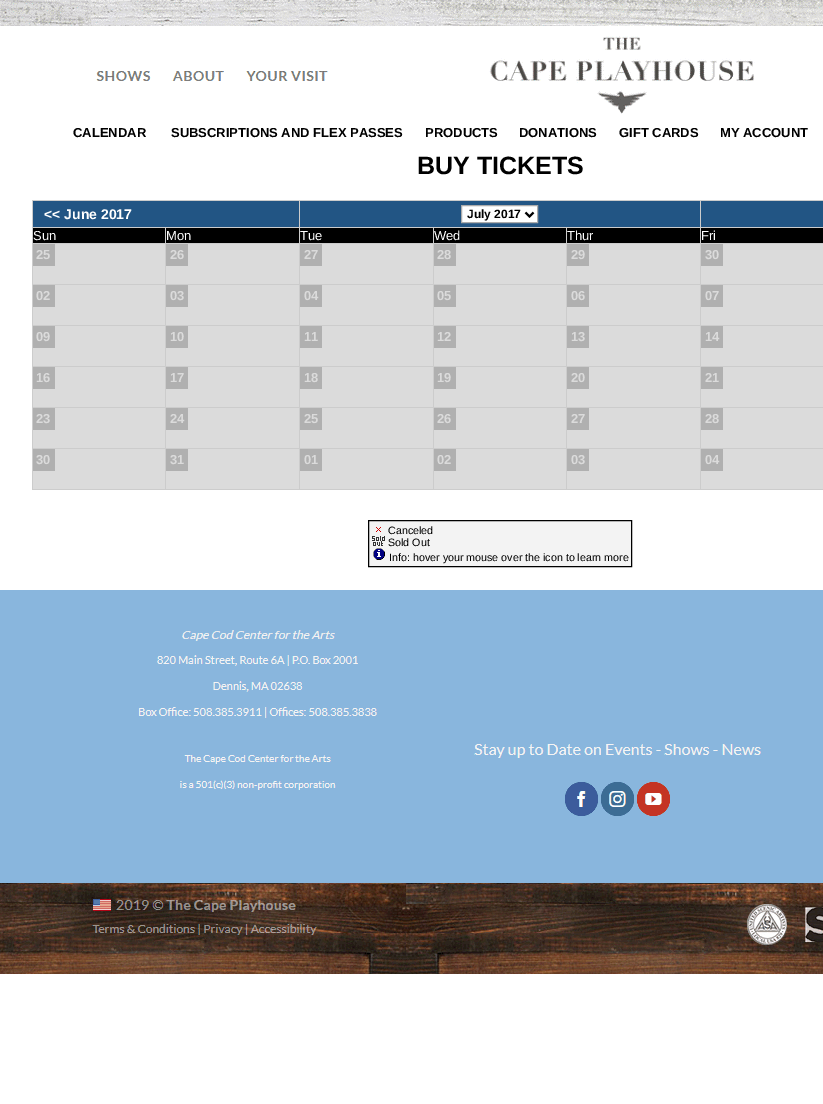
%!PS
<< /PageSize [823 1104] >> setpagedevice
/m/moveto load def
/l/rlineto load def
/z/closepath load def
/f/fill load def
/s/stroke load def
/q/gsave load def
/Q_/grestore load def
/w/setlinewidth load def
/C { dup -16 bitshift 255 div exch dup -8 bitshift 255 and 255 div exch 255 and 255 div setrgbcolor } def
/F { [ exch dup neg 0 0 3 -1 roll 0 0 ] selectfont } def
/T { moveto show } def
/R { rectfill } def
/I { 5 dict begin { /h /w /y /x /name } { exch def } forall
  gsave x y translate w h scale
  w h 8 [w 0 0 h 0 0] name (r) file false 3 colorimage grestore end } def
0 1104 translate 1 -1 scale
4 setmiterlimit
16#FFFFFF C
0 0 823 1104 R
(1.rgb) 0 0 823 114 I
/LiberationSans-Bold 13 F
16#000000 C
(CALENDAR) 73 137 T
(SUBSCRIPTIONS AND FLEX PASSES) 171 137 T
(PRODUCTS) 425 137 T
(DONATIONS) 519 137 T
(GIFT CARDS) 619 137 T
(MY ACCOUNT) 720 137 T
/LiberationSans-Bold 25 F
(BUY TICKETS) 417 174 T
16#CCCCCC C
32 200 791 290 R
16#225584 C
33 201 266 26 R
/LiberationSans-Bold 14 F
16#FFFFFF C
(<< June 2017) 44 219 T
16#225584 C
300 201 400 26 R
16#FFFFFF C
461.5 205.5 m 76 0 l 0 17 l -76 0 l z q f Q_
16#ABABAB C
s
16#000000 C
2 w
525.5 212.5 m 4 4 l 4 -4 l s
/LiberationSans-Bold 12 F
(July 2017) 467 218 T
16#225584 C
701 201 122 26 R
16#000000 C
33 228 132 15 R
/LiberationSans-Regular 13 F
16#FFFFFF C
(Sun) 33 240 T
16#000000 C
166 228 133 15 R
16#FFFFFF C
(Mon) 166 240 T
16#000000 C
300 228 133 15 R
16#FFFFFF C
(Tue) 300 240 T
16#000000 C
434 228 132 15 R
16#FFFFFF C
(Wed) 434 240 T
16#000000 C
567 228 133 15 R
16#FFFFFF C
(Thur) 567 240 T
16#000000 C
701 228 122 15 R
16#FFFFFF C
(Fri) 701 240 T
16#DBDBDB C
33 244 132 40 R
16#B0B0B0 C
33 244 22 22 R
/LiberationSans-Bold 13 F
16#DBDBDB C
(25) 36 259 T
166 244 133 40 R
16#B0B0B0 C
166 244 22 22 R
16#DBDBDB C
(26) 170 259 T
300 244 133 40 R
16#B0B0B0 C
300 244 22 22 R
16#DBDBDB C
(27) 304 259 T
434 244 132 40 R
16#B0B0B0 C
434 244 22 22 R
16#DBDBDB C
(28) 437 259 T
567 244 133 40 R
16#B0B0B0 C
567 244 22 22 R
16#DBDBDB C
(29) 571 259 T
701 244 122 40 R
16#B0B0B0 C
701 244 22 22 R
16#DBDBDB C
(30) 705 259 T
33 285 132 40 R
16#B0B0B0 C
33 285 22 22 R
16#DBDBDB C
(02) 36 300 T
166 285 133 40 R
16#B0B0B0 C
166 285 22 22 R
16#DBDBDB C
(03) 170 300 T
300 285 133 40 R
16#B0B0B0 C
300 285 22 22 R
16#DBDBDB C
(04) 304 300 T
434 285 132 40 R
16#B0B0B0 C
434 285 22 22 R
16#DBDBDB C
(05) 437 300 T
567 285 133 40 R
16#B0B0B0 C
567 285 22 22 R
16#DBDBDB C
(06) 571 300 T
701 285 122 40 R
16#B0B0B0 C
701 285 22 22 R
16#DBDBDB C
(07) 705 300 T
33 326 132 40 R
16#B0B0B0 C
33 326 22 22 R
16#DBDBDB C
(09) 36 341 T
166 326 133 40 R
16#B0B0B0 C
166 326 22 22 R
16#DBDBDB C
(10) 170 341 T
300 326 133 40 R
16#B0B0B0 C
300 326 22 22 R
16#DBDBDB C
(11) 304 341 T
434 326 132 40 R
16#B0B0B0 C
434 326 22 22 R
16#DBDBDB C
(12) 437 341 T
567 326 133 40 R
16#B0B0B0 C
567 326 22 22 R
16#DBDBDB C
(13) 571 341 T
701 326 122 40 R
16#B0B0B0 C
701 326 22 22 R
16#DBDBDB C
(14) 705 341 T
33 367 132 40 R
16#B0B0B0 C
33 367 22 22 R
16#DBDBDB C
(16) 36 382 T
166 367 133 40 R
16#B0B0B0 C
166 367 22 22 R
16#DBDBDB C
(17) 170 382 T
300 367 133 40 R
16#B0B0B0 C
300 367 22 22 R
16#DBDBDB C
(18) 304 382 T
434 367 132 40 R
16#B0B0B0 C
434 367 22 22 R
16#DBDBDB C
(19) 437 382 T
567 367 133 40 R
16#B0B0B0 C
567 367 22 22 R
16#DBDBDB C
(20) 571 382 T
701 367 122 40 R
16#B0B0B0 C
701 367 22 22 R
16#DBDBDB C
(21) 705 382 T
33 408 132 40 R
16#B0B0B0 C
33 408 22 22 R
16#DBDBDB C
(23) 36 423 T
166 408 133 40 R
16#B0B0B0 C
166 408 22 22 R
16#DBDBDB C
(24) 170 423 T
300 408 133 40 R
16#B0B0B0 C
300 408 22 22 R
16#DBDBDB C
(25) 304 423 T
434 408 132 40 R
16#B0B0B0 C
434 408 22 22 R
16#DBDBDB C
(26) 437 423 T
567 408 133 40 R
16#B0B0B0 C
567 408 22 22 R
16#DBDBDB C
(27) 571 423 T
701 408 122 40 R
16#B0B0B0 C
701 408 22 22 R
16#DBDBDB C
(28) 705 423 T
33 449 132 40 R
16#B0B0B0 C
33 449 22 22 R
16#DBDBDB C
(30) 36 464 T
166 449 133 40 R
16#B0B0B0 C
166 449 22 22 R
16#DBDBDB C
(31) 170 464 T
300 449 133 40 R
16#B0B0B0 C
300 449 22 22 R
16#DBDBDB C
(01) 304 464 T
434 449 132 40 R
16#B0B0B0 C
434 449 22 22 R
16#DBDBDB C
(02) 437 464 T
567 449 133 40 R
16#B0B0B0 C
567 449 22 22 R
16#DBDBDB C
(03) 571 464 T
701 449 122 40 R
16#B0B0B0 C
701 449 22 22 R
16#DBDBDB C
(04) 705 464 T
16#F3F3F3 C
368.5 520.5 m 263 0 l 0 46 l -263 0 l z q f Q_
16#000000 C
1 w
s
(2.rgb) 376 527 5 5 I
/LiberationSans-Regular 10.7 F
(Canceled) 388 534 T
(3.rgb) 372 536 13 10 I
(Sold Out) 388 546 T
(4.rgb) 373 548 12 12 I
(Info: hover your mouse over the icon to learn more) 389 561 T
(5.rgb) 0 590 823 40 I
(6.rgb) 0 630 823 344 I
showpage
